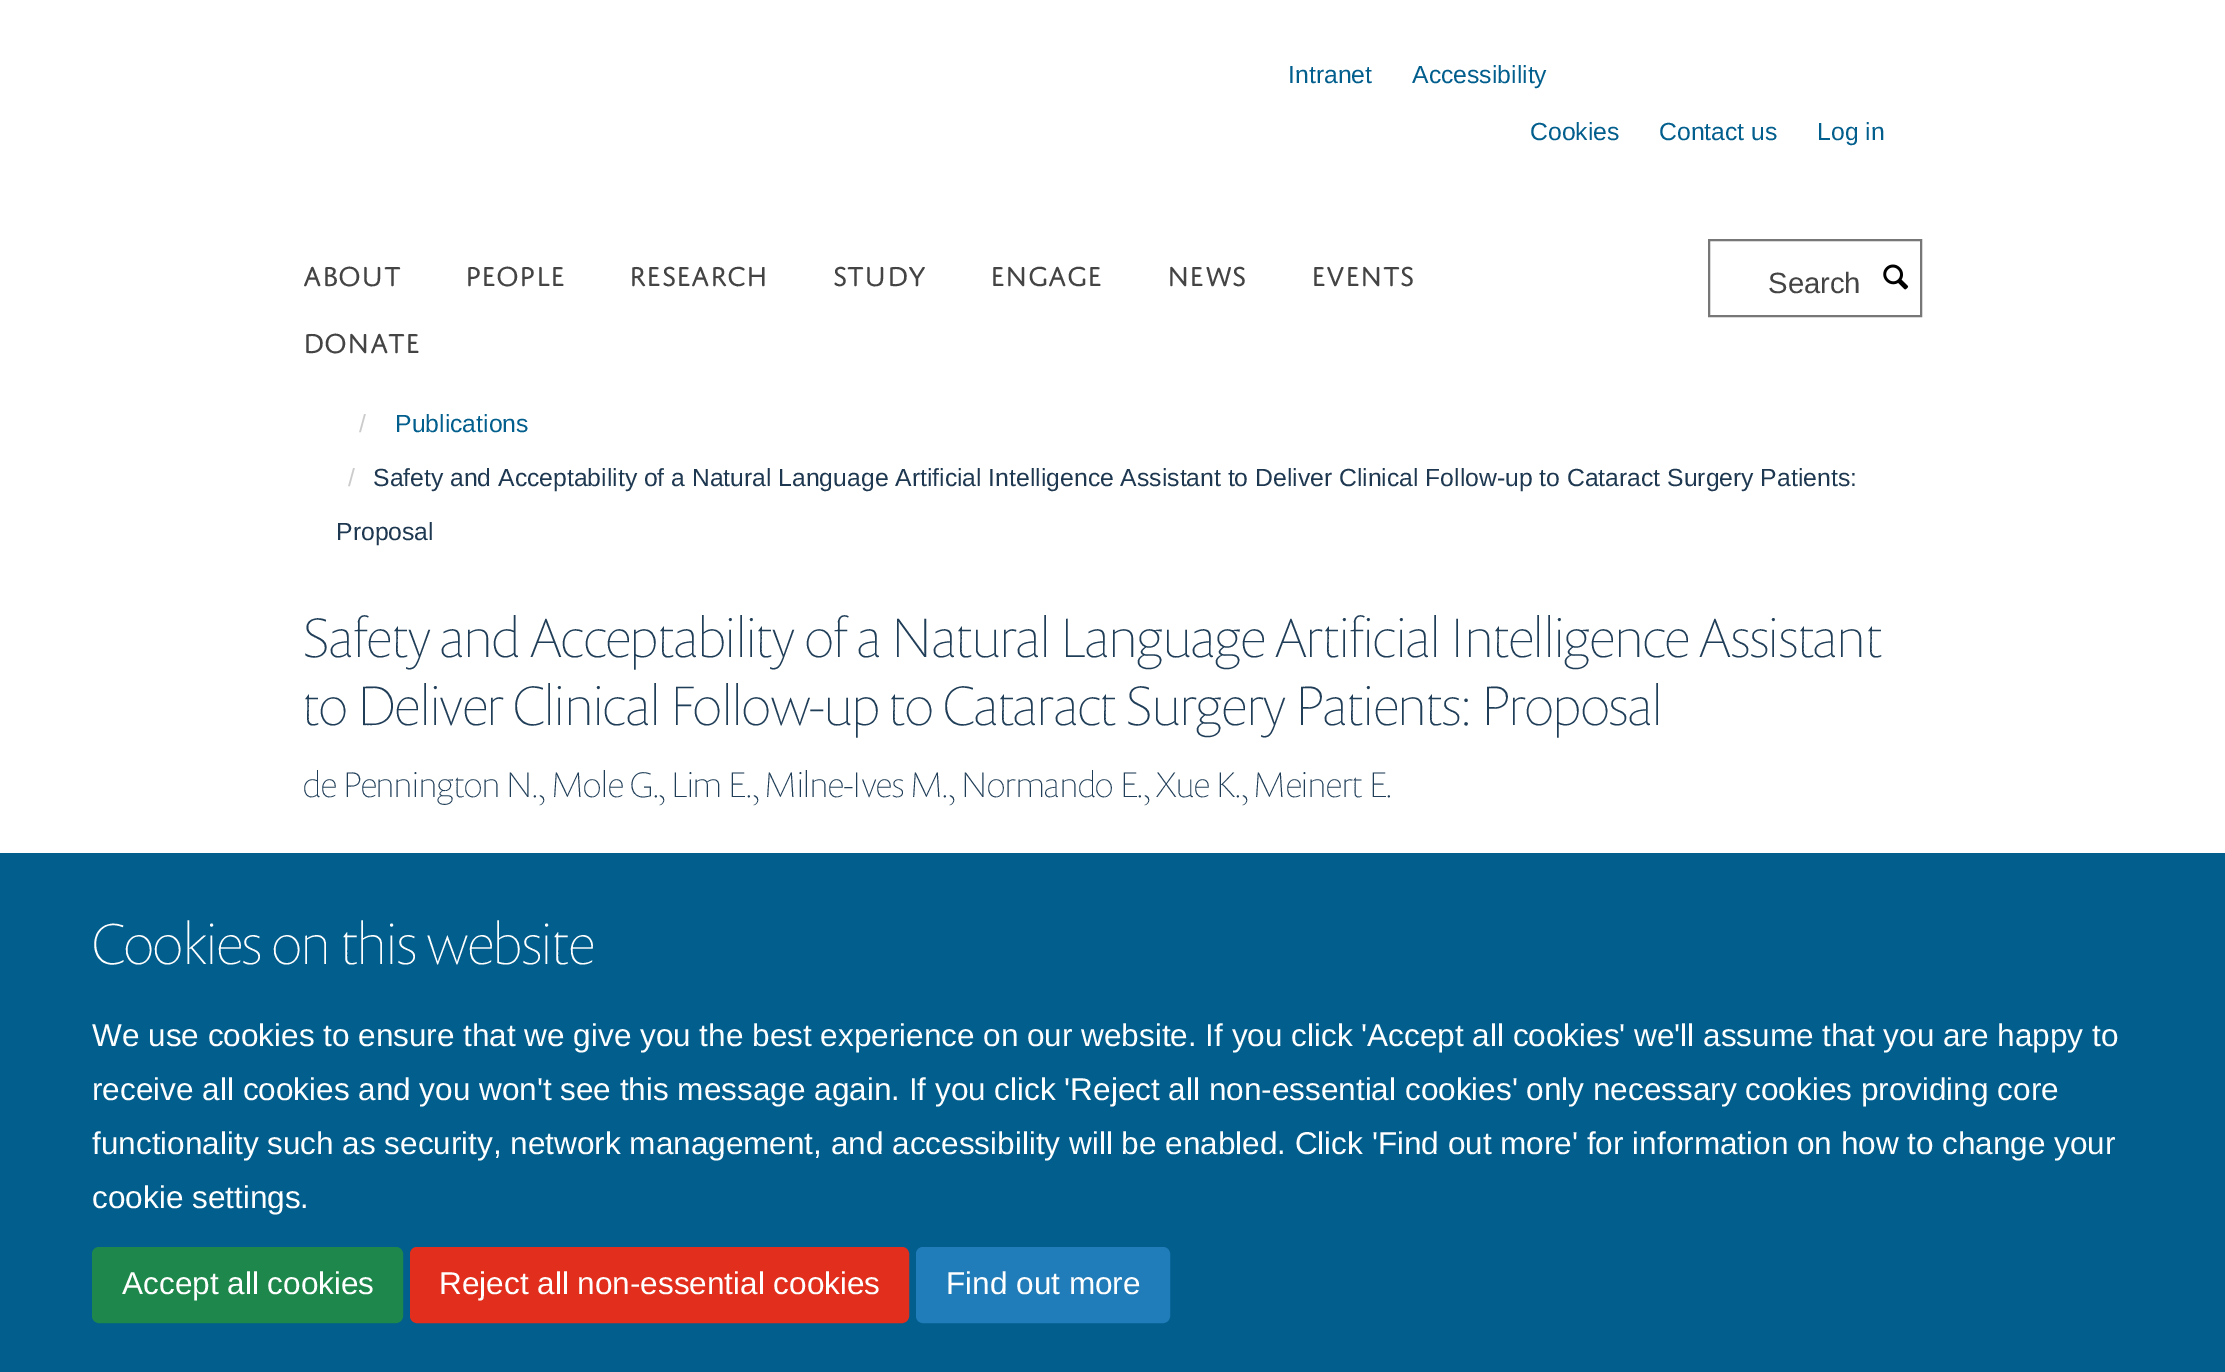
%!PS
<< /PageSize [2225 1372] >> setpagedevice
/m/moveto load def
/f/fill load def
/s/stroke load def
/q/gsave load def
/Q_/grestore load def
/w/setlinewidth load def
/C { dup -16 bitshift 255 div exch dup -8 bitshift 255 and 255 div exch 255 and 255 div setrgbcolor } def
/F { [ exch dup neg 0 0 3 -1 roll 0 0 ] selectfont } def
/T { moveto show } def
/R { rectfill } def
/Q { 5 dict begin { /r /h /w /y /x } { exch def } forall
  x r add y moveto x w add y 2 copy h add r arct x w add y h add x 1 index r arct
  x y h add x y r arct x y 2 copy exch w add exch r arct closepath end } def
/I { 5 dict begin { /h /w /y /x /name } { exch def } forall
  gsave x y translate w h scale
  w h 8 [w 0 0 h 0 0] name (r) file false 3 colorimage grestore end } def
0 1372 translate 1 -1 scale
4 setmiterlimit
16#FFFFFF C
0 0 2225 1372 R
/LiberationSans-Regular 24.75 F
16#015E8D C
(Intranet) 1288 83 T
(Accessibility) 1412 83 T
(Cookies) 1530 140 T
(Contact us) 1659 140 T
(Log in) 1817 140 T
/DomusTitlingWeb-Regular 29.25 F
16#444444 C
(ABOUT) 303 286 T
(PEOPLE) 465 286 T
(RESEARCH) 629 286 T
(STUDY) 833 286 T
(ENGAGE) 990 286 T
(NEWS) 1167 286 T
(EVENTS) 1311 286 T
(DONATE) 303 353 T
16#777777 C
2 w
1709 240 212 76 rectstroke
/LiberationSans-Regular 29.25 F
16#444444 C
(Search) 1768 293 T
(1.rgb) 1883 264 26 26 I
/LiberationSans-Regular 24.75 F
16#CCCCCC C
(/) 359 432 T
16#015E8D C
(Publications) 395 432 T
16#CCCCCC C
(/) 348 486 T
16#1D3850 C
373 486 m -.1 0 32 (Safety and Acceptability of a Natural Language Artificial Intelligence Assistant to Deliver Clinical Follow-up to Cataract Surgery Patients:) widthshow
(Proposal) 336 540 T
/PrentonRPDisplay-Thin 56.25 F
16#203E58 C
(Safety and Acceptability of a Natural Language Artificial Intelligence Assistant) 303 657 T
(to Deliver Clinical Follow-up to Cataract Surgery Patients: Proposal) 303 725 T
/PrentonRPDisplay-Thin 36 F
(de Pennington N., Mole G., Lim E., Milne-Ives M., Normando E., Xue K., Meinert E.) 303 797 T
16#015E8D C
0 853 2225 519 R
/PrentonRPDisplay-Thin 58.5 F
16#FFFFFF C
(Cookies on this website) 92 964 T
/LiberationSans-Regular 31.5 F
(We use cookies to ensure that we give you the best experience on our website. If you click 'Accept all cookies' we'll assume that you are happy to) 92 1046 T
(receive all cookies and you won't see this message again. If you click 'Reject all non-essential cookies' only necessary cookies providing core) 92 1100 T
(functionality such as security, network management, and accessibility will be enabled. Click 'Find out more' for information on how to change your) 92 1154 T
(cookie settings.) 92 1208 T
16#1E874B C
93 1248 309 74 6 Q q f Q_
s
16#FFFFFF C
(Accept all cookies) 122 1294 T
16#E22E1C C
411 1248 497 74 6 Q q f Q_
s
16#FFFFFF C
(Reject all non-essential cookies) 439 1294 T
16#217CBA C
917 1248 252 74 6 Q q f Q_
s
16#FFFFFF C
(Find out more) 946 1294 T
showpage
